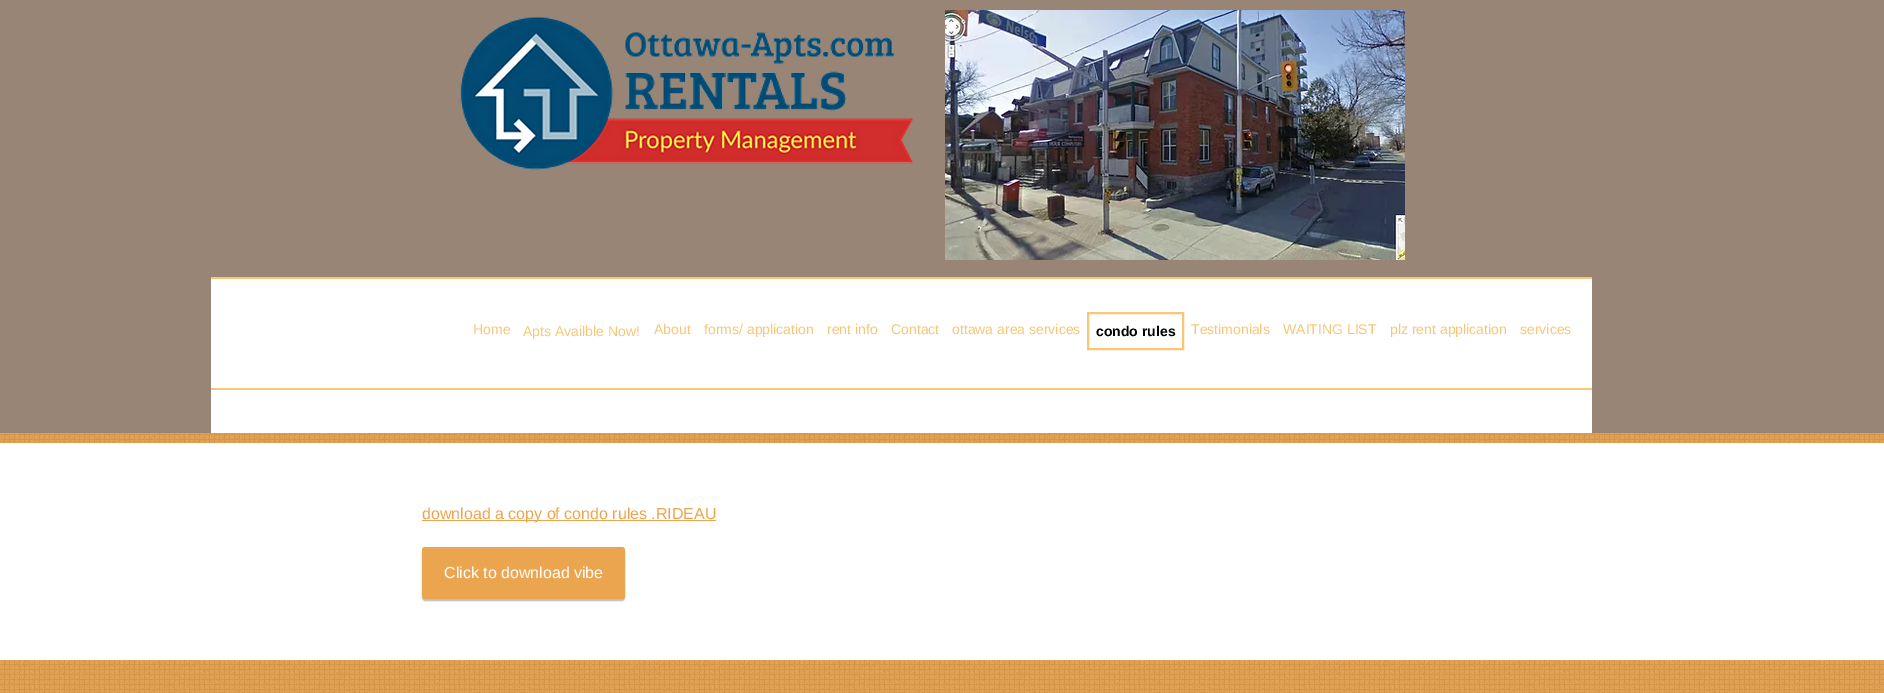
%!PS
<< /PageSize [1884 693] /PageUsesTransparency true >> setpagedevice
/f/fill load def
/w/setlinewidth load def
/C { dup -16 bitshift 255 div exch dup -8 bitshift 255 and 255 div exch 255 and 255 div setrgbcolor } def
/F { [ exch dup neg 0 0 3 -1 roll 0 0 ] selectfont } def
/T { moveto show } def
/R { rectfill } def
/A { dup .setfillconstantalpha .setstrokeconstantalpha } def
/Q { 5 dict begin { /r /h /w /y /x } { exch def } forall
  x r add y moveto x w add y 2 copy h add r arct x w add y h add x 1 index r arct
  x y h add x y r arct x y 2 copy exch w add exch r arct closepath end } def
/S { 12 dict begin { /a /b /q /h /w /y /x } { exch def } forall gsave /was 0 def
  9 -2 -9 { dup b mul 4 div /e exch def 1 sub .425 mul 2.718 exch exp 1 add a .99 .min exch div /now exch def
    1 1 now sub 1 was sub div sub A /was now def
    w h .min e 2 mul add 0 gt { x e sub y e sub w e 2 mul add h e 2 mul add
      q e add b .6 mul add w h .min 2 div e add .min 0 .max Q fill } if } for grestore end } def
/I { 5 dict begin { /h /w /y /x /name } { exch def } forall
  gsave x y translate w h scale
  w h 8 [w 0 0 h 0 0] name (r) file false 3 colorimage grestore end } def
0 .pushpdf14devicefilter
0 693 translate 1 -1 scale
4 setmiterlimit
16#FFFFFF C
0 0 1884 693 R
16#988575 C
0 0 1884 433 R
(1.rgb) 460 17 454 153 I
(2.rgb) 945 10 460 250 I
16#FFFFFF C
211 279 1381 154 R
16#F7C677 C
211 277 1381 2 R
/LiberationSans-Regular 14 F
(Home) 473 334 T
(Apts Availble Now!) 523 336 T
(About) 654 334 T
(forms/ application) 704 334 T
(rent info) 827 334 T
(Contact) 891 334 T
(ottawa area services) 952 334 T
2 w
1088 313 95 36 rectstroke
/LiberationSans-Bold 14 F
16#000000 C
(condo rules) 1096 336 T
/LiberationSans-Regular 14 F
16#F7C677 C
(Testimonials) 1191 334 T
(WAITING LIST) 1283 334 T
(plz rent application) 1390 334 T
(services) 1520 334 T
211 388 1381 2 R
(3.rgb) 0 433 1884 260 I
16#FFFFFF C
0 443 1884 217 R
16#ECA54F C
422 520 294 1 R
/LiberationSans-Regular 16 F
(download a copy of condo rules .RIDEAU) 422 519 T
16#000000 C
422 549 203 52 3 .5 .25 S
16#ECA54F C
422 547 203 52 3 Q f
16#FFFFFF C
(Click to download vibe) 444 578 T
.poppdf14devicefilter showpage
